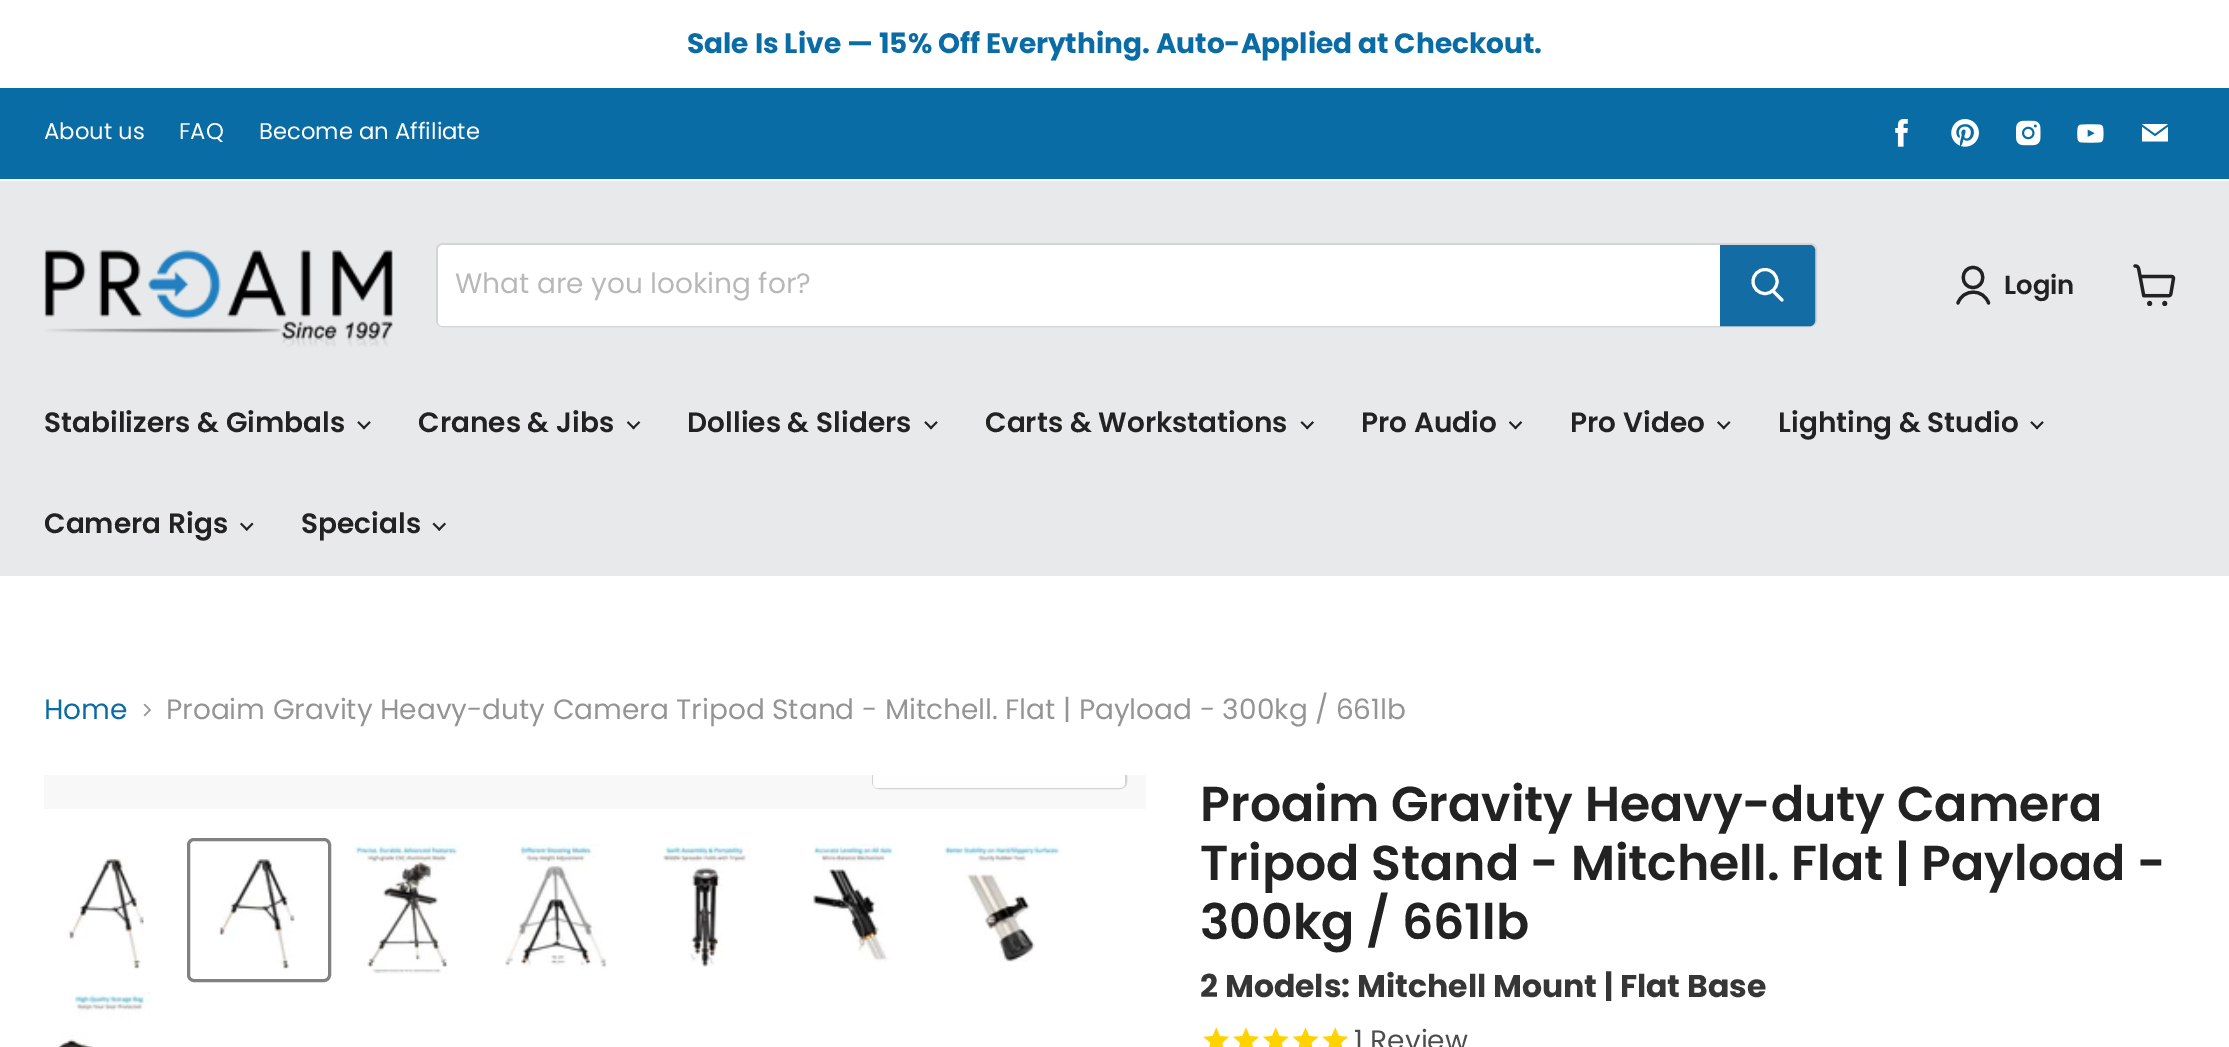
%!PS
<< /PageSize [2229 1047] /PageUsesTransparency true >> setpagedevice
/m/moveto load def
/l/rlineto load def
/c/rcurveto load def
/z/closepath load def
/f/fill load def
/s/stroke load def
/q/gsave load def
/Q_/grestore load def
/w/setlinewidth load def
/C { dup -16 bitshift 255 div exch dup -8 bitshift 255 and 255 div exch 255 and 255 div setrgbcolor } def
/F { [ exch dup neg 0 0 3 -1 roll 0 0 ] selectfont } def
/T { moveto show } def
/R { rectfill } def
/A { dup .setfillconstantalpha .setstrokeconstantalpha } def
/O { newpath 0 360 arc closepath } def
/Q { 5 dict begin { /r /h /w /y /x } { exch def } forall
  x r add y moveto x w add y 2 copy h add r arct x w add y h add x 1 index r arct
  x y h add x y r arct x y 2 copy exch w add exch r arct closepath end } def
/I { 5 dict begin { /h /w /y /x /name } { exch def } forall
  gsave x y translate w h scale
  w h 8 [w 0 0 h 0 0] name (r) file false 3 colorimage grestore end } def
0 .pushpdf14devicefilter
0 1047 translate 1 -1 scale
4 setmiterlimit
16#FFFFFF C
0 0 2229 1047 R
/Poppins-Bold 28 F
16#096CA4 C
(Sale Is Live — 15% Off Everything. Auto-Applied at Checkout.) 687 53 T
0 88 2229 91 R
/Poppins-Regular 22.75 F
16#FFFFFF C
(About us) 44 139 T
(FAQ) 179 139 T
(Become an Affiliate) 259 139 T
(1.rgb) 1895 119 13 28 I
(2.rgb) 1951 119 28 28 I
(3.rgb) 2016 120 25 26 I
(4.rgb) 2077 124 27 19 I
2168 124 m -26 0 l 13 9.5 l z 2155 136.5 m -13 -9.5 l 0 14.5 l 26 0 l 0 -14.5 l z eofill
16#E8E9EA C
0 181 2229 395 R
(5.rgb) 44 249 349 98 I
0.2 A
16#808080 C
2 w
437 244 1379 82 6 Q s
1 A
16#FFFFFF C
443 245 m 1277 0 l 0 81 l -1277 0 l -3 0 -5 -2 -5 -5 c 0 -71 l 0 -3 2 -5 5 -5 c z f
/Poppins-Regular 28 F
16#B8B8B8 C
(What are you looking for?) 455 293 T
16#146CA4 C
1721 246 m 89 0 l 2 0 4 2 4 4 c 0 71 l 0 2 -2 4 -4 4 c -89 0 l z q f Q_
s
16#FFFFFF C
3 w
1 setlinecap
1782 300 m -8.5 -8.5 l s
0 setlinecap
1765 281.5 12 O s
16#222222 C
3.2 w
1 setlinecap
1 setlinejoin
1973 287.5 m 13 0 13 -20 0 -20 c -13 0 -13 20 0 20 c z 1988.5 303 m -5 -14.5 -25.5 -14.5 -30.5 0 c s
/Poppins-SemiBold 26 F
(Login) 2004 294 T
(6.rgb) 2133 264 43 42 I
/Poppins-SemiBold 28 F
(Stabilizers & Gimbals) 44 432 T
(7.rgb) 357 421 14 9 I
(Cranes & Jibs) 418 432 T
(8.rgb) 627 421 14 9 I
(Dollies & Sliders) 687 432 T
(7.rgb) 924 421 14 9 I
(Carts & Workstations) 985 432 T
(9.rgb) 1300 421 14 9 I
(Pro Audio) 1361 432 T
(8.rgb) 1509 421 14 9 I
(Pro Video) 1570 432 T
(10.rgb) 1717 421 14 9 I
(Lighting & Studio) 1778 432 T
(7.rgb) 2030 421 14 9 I
(Camera Rigs) 44 533 T
(11.rgb) 240 522 14 9 I
(Specials) 301 533 T
(12.rgb) 432 522 14 9 I
/Poppins-Regular 28 F
16#096CA4 C
(Home) 44 719 T
(13.rgb) 143 703 8 14 I
16#949494 C
(Proaim Gravity Heavy-duty Camera Tripod Stand - Mitchell. Flat | Payload - 300kg / 661lb) 166 719 T
16#F8F8F8 C
44 775 1102 34 R
q
44 775 1102 34 rectclip
16#D3D3D3 C
2 w
0 setlinecap
0 setlinejoin
873 736 253 52 6 Q s
Q_
0.9 A
16#FFFFFF C
873 775 m 252 0 l 0 8 l 0 3 -2 5 -5 5 c -242 0 l -3 0 -5 -2 -5 -5 c z f
1 A
(14.rgb) 68 858 76 111 I
16#818181 C
3 w
0 setlinecap
0 setlinejoin
188.5 839.5 141 141 5.5 Q s
(15.rgb) 218 858 77 112 I
(16.rgb) 354 843 110 131 I
(17.rgb) 505 843 102 126 I
(18.rgb) 663 843 88 124 I
(19.rgb) 813 843 86 119 I
(20.rgb) 944 843 118 119 I
(21.rgb) 58 992 93 55 I
/Poppins-SemiBold 49 F
16#222222 C
(Proaim Gravity Heavy-duty Camera) 1200 821 T
(Tripod Stand - Mitchell. Flat | Payload -) 1200 880 T
(300kg / 661lb) 1200 939 T
/Poppins-Bold 31.5 F
16#363636 C
(2 Models: Mitchell Mount | Flat Base) 1200 997 T
(22.rgb) 1203 1027 27 20 I
(23.rgb) 1233 1027 26 20 I
(24.rgb) 1262 1027 27 20 I
(25.rgb) 1292 1027 27 20 I
(22.rgb) 1322 1027 27 20 I
/Poppins-Regular 28 F
16#4D4D4D C
(1 Review) 1354 1050 T
.poppdf14devicefilter showpage
